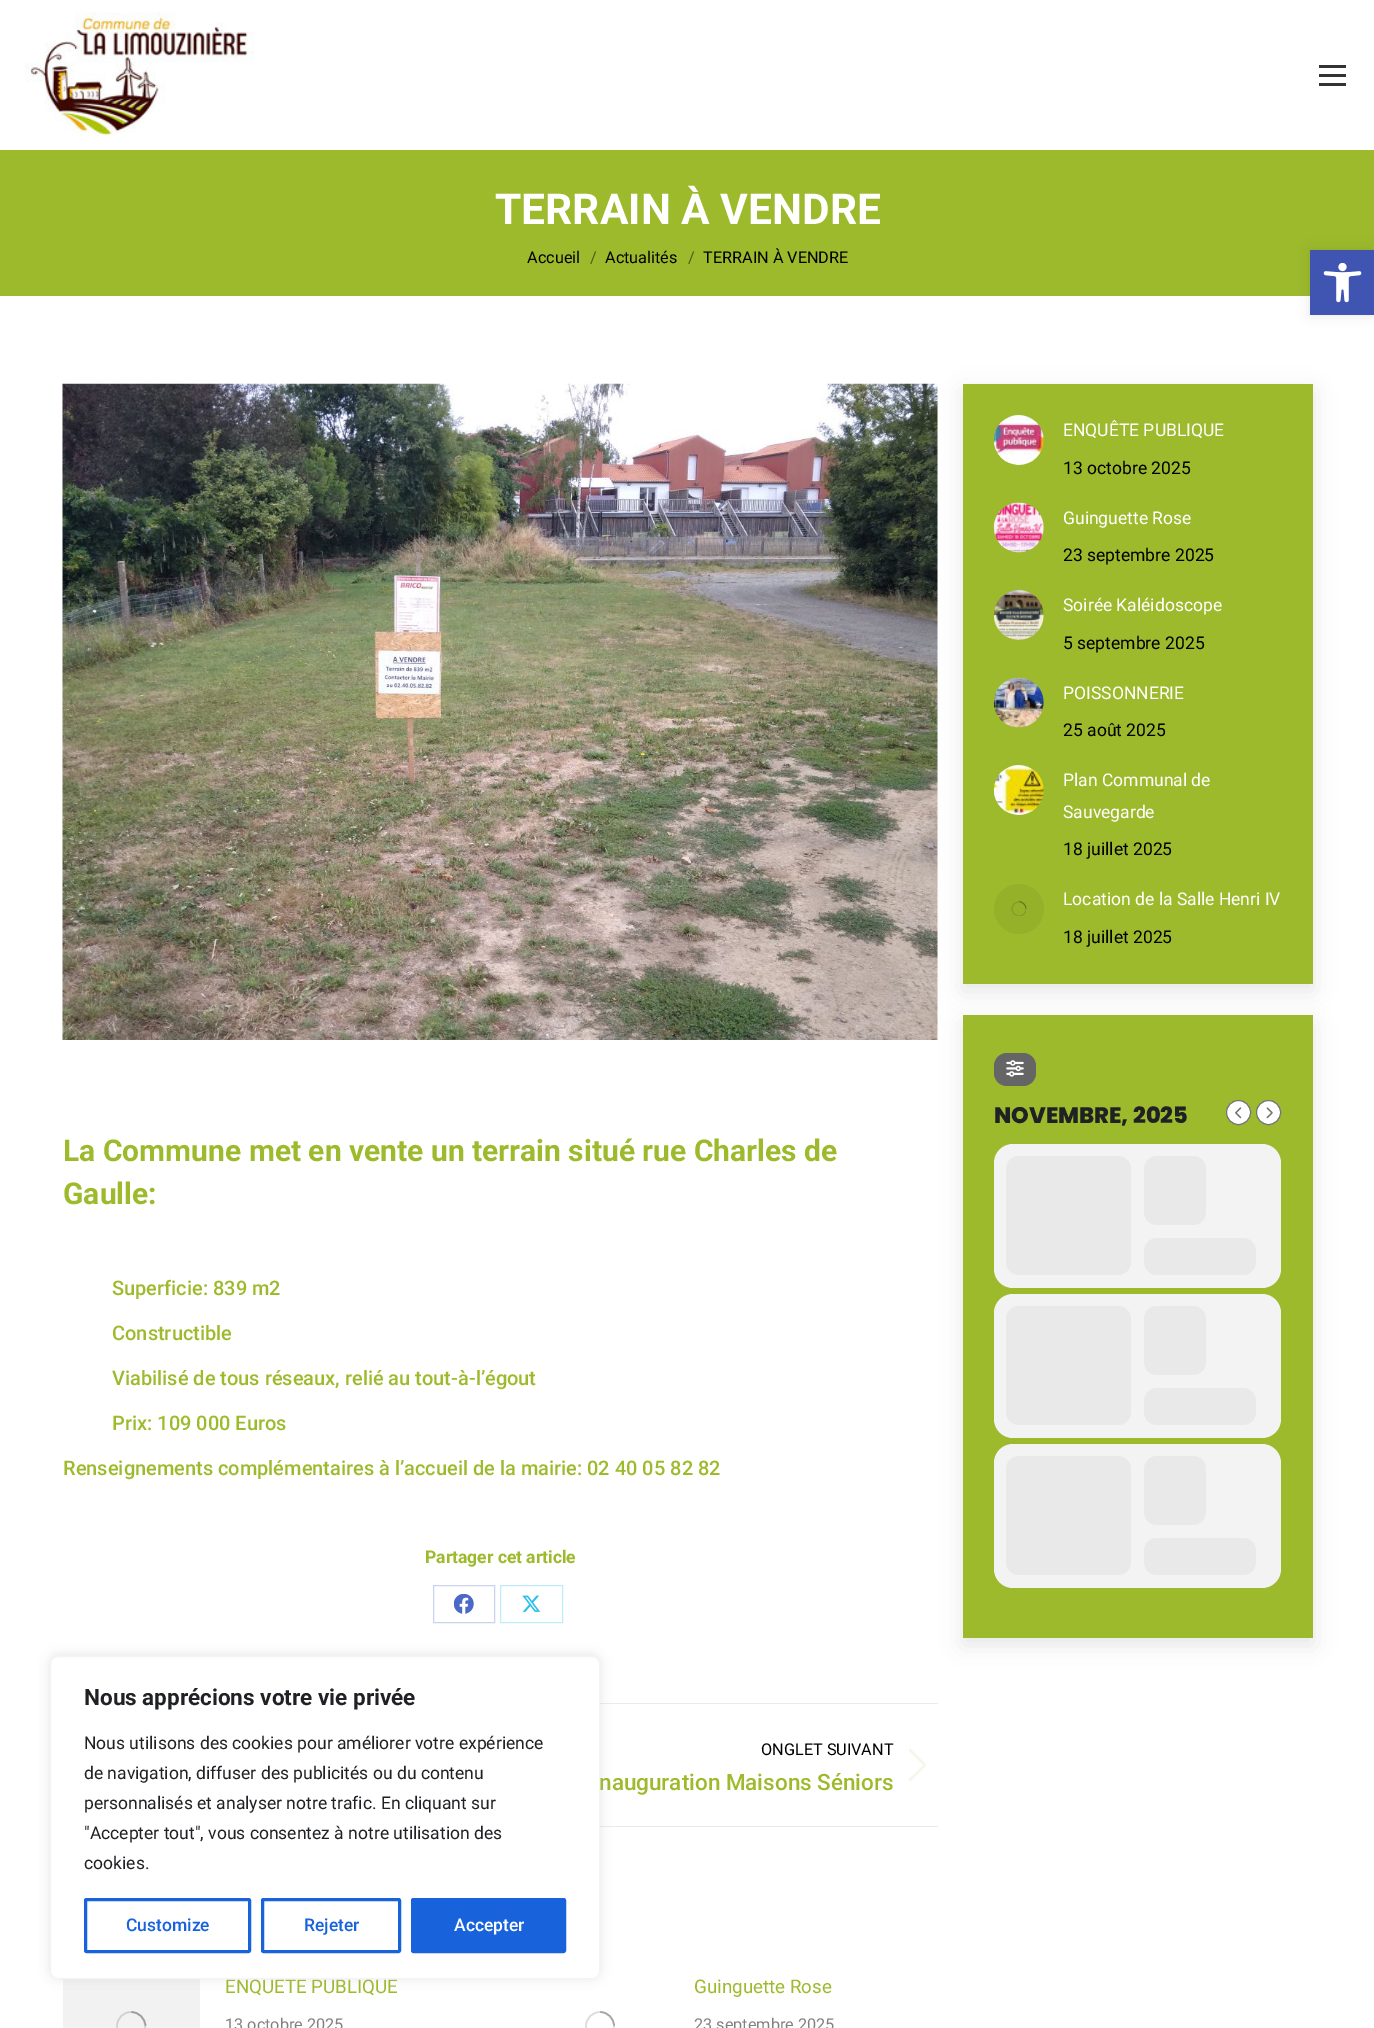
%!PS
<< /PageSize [1374 2028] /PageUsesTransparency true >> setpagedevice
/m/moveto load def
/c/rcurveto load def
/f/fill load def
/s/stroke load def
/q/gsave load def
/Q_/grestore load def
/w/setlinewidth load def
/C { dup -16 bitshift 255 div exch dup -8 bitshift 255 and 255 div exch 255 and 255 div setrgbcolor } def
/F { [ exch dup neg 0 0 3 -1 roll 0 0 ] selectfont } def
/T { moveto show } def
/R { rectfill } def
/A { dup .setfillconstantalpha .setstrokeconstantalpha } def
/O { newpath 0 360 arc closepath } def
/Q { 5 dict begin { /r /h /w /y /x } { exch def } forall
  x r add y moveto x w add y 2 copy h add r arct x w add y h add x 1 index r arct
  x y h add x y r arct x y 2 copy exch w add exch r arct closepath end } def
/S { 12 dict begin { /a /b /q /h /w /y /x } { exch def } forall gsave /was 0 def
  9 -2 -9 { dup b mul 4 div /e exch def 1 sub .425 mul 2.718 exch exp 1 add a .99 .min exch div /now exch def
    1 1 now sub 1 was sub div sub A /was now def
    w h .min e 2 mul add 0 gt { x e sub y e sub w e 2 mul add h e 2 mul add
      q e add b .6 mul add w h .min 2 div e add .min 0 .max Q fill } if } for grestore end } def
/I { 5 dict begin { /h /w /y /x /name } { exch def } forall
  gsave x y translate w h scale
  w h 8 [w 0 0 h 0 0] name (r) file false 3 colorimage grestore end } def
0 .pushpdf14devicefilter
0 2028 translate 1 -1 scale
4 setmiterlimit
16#FFFFFF C
0 0 1374 2028 R
(1.rgb) 25 12 229 124 I
16#333333 C
1319 65 27 3 R
1319 74 27 3 R
1319 83 27 3 R
16#9DBA2C C
0 150 1374 146 R
/Roboto-Bold 42.5 F
16#FFFFFF C
(TERRAIN À VENDRE) 495 224 T
/Roboto-Regular 16.25 F
16#000000 C
(Accueil) 527 263 T
16#4F5D16 C
(/) 590 263 T
16#000000 C
(Actualités) 605 263 T
16#4F5D16 C
(/) 688 263 T
16#000000 C
(TERRAIN À VENDRE) 703 263 T
(10.rgb) 62 383 876 657 I
963 391 350 600 0 11 .1 S
16#9DBA2C C
963 384 350 600 R
(2.rgb) 993 415 51 50 I
/Roboto-Regular 17.5 F
16#FFFFFF C
(ENQUÊTE PUBLIQUE) 1063 436 T
16#000000 C
(13 octobre 2025) 1063 474 T
(3.rgb) 993 502 51 51 I
16#FFFFFF C
(Guinguette Rose) 1063 524 T
16#000000 C
(23 septembre 2025) 1063 561 T
(4.rgb) 993 590 51 50 I
16#FFFFFF C
(Soirée Kaléidoscope) 1063 611 T
16#000000 C
(5 septembre 2025) 1063 649 T
(5.rgb) 993 677 51 51 I
16#FFFFFF C
(POISSONNERIE) 1063 699 T
16#000000 C
(25 août 2025) 1063 736 T
(6.rgb) 993 765 51 50 I
16#FFFFFF C
(Plan Communal de) 1063 786 T
(Sauvegarde) 1063 818 T
16#000000 C
(18 juillet 2025) 1063 855 T
16#95B12A C
1019 909 25 O f
q
1011 901 15 15 rectclip
16#819924 C
.8 w
1019 909 7 O s
Q_
0.25 A
16#000000 C
.8 w
1026 909 m 0 -4 -3.5 -7.5 -7 -7.5 c s
1 A
16#FFFFFF C
(Location de la Salle Henri IV) 1063 905 T
16#000000 C
(18 juillet 2025) 1063 943 T
963 1023 350 622 0 11 .1 S
16#9DBA2C C
963 1015 350 623 R
16#656565 C
994 1053 42 33 13 Q f
(7.rgb) 1006 1060 18 17 I
/Poppins-ExtraBold 22.5 F
16#202124 C
(NOVEMBRE, 2025) 994 1123 T
16#FFFFFF C
1238.5 1112.5 12 O q f Q_
16#737373 C
1 w
s
(8.rgb) 1235 1107 7 12 I
16#FFFFFF C
1268.5 1112.5 12 O q f Q_
16#737373 C
s
(9.rgb) 1266 1107 7 12 I
16#F3F3F3 C
994 1144 287 144 19 Q f
16#E9E9E9 C
1006 1156 125 119 13 Q f
1144 1156 62 69 13 Q f
1144 1238 112 37 13 Q f
16#F3F3F3 C
994 1294 287 144 19 Q f
16#E9E9E9 C
1006 1306 125 119 13 Q f
1144 1306 62 69 13 Q f
1144 1388 112 37 13 Q f
16#F3F3F3 C
994 1444 287 144 19 Q f
16#E9E9E9 C
1006 1456 125 119 13 Q f
1144 1456 62 69 13 Q f
1144 1538 112 37 13 Q f
/Roboto-Bold 30 F
16#9DBA2C C
(La Commune met en vente un terrain situé rue Charles de) 63 1161 T
(Gaulle:) 63 1204 T
/Roboto-Medium 20 F
(Superficie: 839 m2) 112 1295 T
(Constructible) 112 1340 T
(Viabilisé de tous réseaux, relié au tout-à-l’égout) 112 1385 T
(Prix: 109 000 Euros) 112 1430 T
(Renseignements complémentaires à l’accueil de la mairie: 02 40 05 82 82) 63 1475 T
/Roboto-Bold 17.5 F
(Partager cet article) 425 1563 T
16#C9D2EE C
433.5 1585.5 61 37 rectstroke
(11.rgb) 454 1594 20 20 I
16#BFECF9 C
500.5 1585.5 62 37 rectstroke
(12.rgb) 522 1595 19 17 I
16#EAEAEA C
600 1703 338 1 R
600 1826 338 1 R
/Roboto-Regular 16.25 F
16#000000 C
(ONGLET SUIVANT) 761 1755 T
(13.rgb) 908 1748 18 33 I
/Roboto-Medium 22.5 F
16#9DBA2C C
(nauguration Maisons Séniors) 599 1790 T
16#F2F2F2 C
63 1979 137 49 R
16#D1D1D1 C
1.6 w
131 2026 14 O s
0.25 A
16#000000 C
145.5 2026 m 0 -7.5 -6.5 -14 -14.5 -14 c s
/Roboto-Regular 18.75 F
1 A
16#9DBA2C C
(ENQUÊTE PUBLIQUE) 225 1993 T
/Roboto-Regular 16.25 F
16#808080 C
(13 octobre 2025) 225 2030 T
16#DCDCDC C
600 2026 14 O s
0.25 A
16#000000 C
614 2026 m 0 -7.5 -6 -14 -14 -14 c s
/Roboto-Regular 18.75 F
1 A
16#9DBA2C C
(Guinguette Rose) 694 1993 T
/Roboto-Regular 16.25 F
16#808080 C
(23 septembre 2025) 694 2030 T
16#000000 C
1310 250 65 65 0 6 .1 S
16#4054B2 C
1310 250 64 65 R
(14.rgb) 1323 263 39 40 I
16#ACABAB C
50 1655 550 323 8 6 .3 S
16#FFFFFF C
50.5 1656.5 549 322 7.5 Q q f Q_
16#F4F4F4 C
1 w
s
/Roboto-Bold 22.5 F
16#202124 C
(Nous apprécions votre vie privée) 84 1705 T
/Roboto-Regular 17.5 F
(Nous utilisons des cookies pour améliorer votre expérience) 84 1749 T
(de navigation, diffuser des publicités ou du contenu) 84 1779 T
(personnalisés et analyser notre trafic. En cliquant sur) 84 1809 T
("Accepter tout", vous consentez à notre utilisation des) 84 1839 T
(cookies.) 84 1869 T
16#1863DC C
3 w
85.5 1899.5 164 52 1 Q s
/Roboto-Medium 17.5 F
(Customize) 126 1931 T
262.5 1899.5 137 52 1 Q s
(Rejeter) 304 1931 T
412.5 1899.5 152 52 1 Q q f Q_
s
16#FFFFFF C
(Accepter) 454 1931 T
.poppdf14devicefilter showpage
